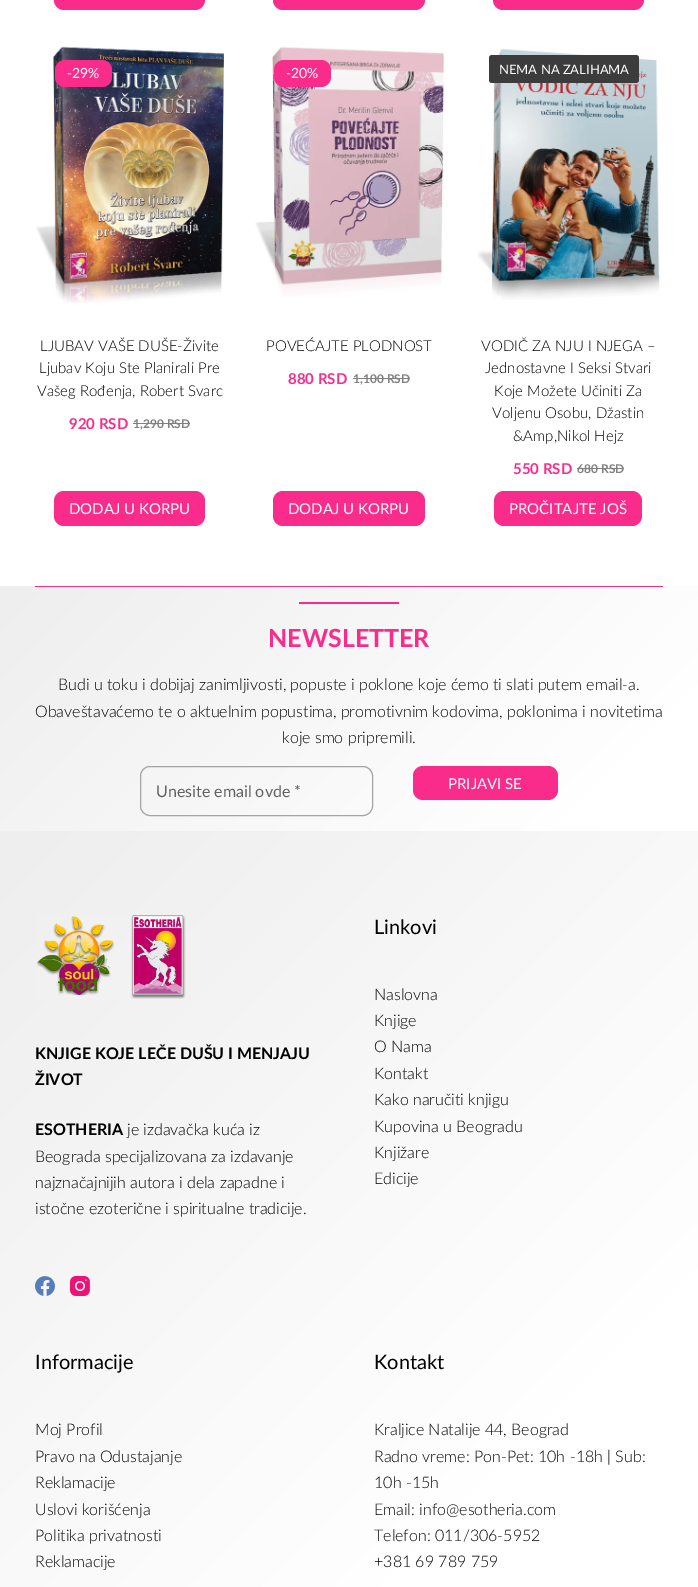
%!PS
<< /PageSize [698 1587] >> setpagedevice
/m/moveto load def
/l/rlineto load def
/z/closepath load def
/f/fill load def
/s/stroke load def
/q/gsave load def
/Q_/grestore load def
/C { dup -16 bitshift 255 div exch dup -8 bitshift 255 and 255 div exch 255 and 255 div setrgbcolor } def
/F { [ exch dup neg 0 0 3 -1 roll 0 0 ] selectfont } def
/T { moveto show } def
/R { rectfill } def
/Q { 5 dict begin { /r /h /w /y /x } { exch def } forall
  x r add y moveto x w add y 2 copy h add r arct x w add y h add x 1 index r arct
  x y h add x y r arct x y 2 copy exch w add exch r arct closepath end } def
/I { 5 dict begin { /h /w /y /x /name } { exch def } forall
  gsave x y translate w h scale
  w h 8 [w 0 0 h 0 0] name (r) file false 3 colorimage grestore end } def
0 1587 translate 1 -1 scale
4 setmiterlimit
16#FFFFFF C
0 0 698 1587 R
16#F92C8B C
54 -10 151 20 10 Q f
273 -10 152 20 10 Q f
493 -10 151 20 10 Q f
(1.rgb) 36 46 188 257 I
55 60 57 27 10 Q f
/Lato-Regular 14 F
16#FFFFFF C
(-29%) 67 78 T
/Lato-Light 15 F
16#000000 C
(LJUBAV VAŠE DUŠE-Živite) 40 351 T
(Ljubav Koju Ste Planirali Pre) 39 373 T
(Vašeg Rođenja, Robert Svarc) 37 396 T
/Lato-Bold 15 F
16#F92C8B C
(920 RSD) 69 429 T
/Lato-Bold 12 F
16#808080 C
(1,290 RSD) 133 428 T
133 423 57 1 R
16#F92C8B C
54 491 151 35 10 Q f
/Lato-Regular 15 F
16#FFFFFF C
(DODAJ U KORPU) 69 514 T
(2.rgb) 255 46 189 251 I
16#F92C8B C
274 60 57 27 10 Q f
/Lato-Regular 14 F
16#FFFFFF C
(-20%) 286 78 T
/Lato-Light 15 F
16#000000 C
(POVEĆAJTE PLODNOST) 266 351 T
/Lato-Bold 15 F
16#F92C8B C
(880 RSD) 288 384 T
/Lato-Bold 12 F
16#808080 C
(1,100 RSD) 353 383 T
353 378 57 1 R
16#F92C8B C
273 491 152 35 10 Q f
/Lato-Regular 15 F
16#FFFFFF C
(DODAJ U KORPU) 288 514 T
(3.rgb) 477 48 183 252 I
16#3C3C3C C
489 55 150 28 3 Q f
/Lato-Regular 13 F
16#FFFFFF C
(NEMA NA ZALIHAMA) 499 74 T
/Lato-Light 15 F
16#000000 C
(VODIČ ZA NJU I NJEGA –) 481 351 T
(Jednostavne I Seksi Stvari) 485 373 T
(Koje Možete Učiniti Za) 494 396 T
(Voljenu Osobu, Džastin) 492 418 T
(&Amp,Nikol Hejz) 513 441 T
/Lato-Bold 15 F
16#F92C8B C
(550 RSD) 513 474 T
/Lato-Bold 12 F
16#808080 C
(680 RSD) 577 473 T
577 468 47 1 R
16#F92C8B C
494 491 148 35 10 Q f
/Lato-Regular 15 F
16#FFFFFF C
(PROČITAJTE JOŠ) 509 514 T
q 0 586 m 698 0 l 0 245 l -698 0 l z clip newpath
<< /ShadingType 2 /ColorSpace /DeviceRGB /Coords [113 473 585 944] /Extend [true true] /Function << /FunctionType 3 /Domain [0 1] /Functions [<< /FunctionType 2 /Domain [0 1] /C0 [.933 .933 .933] /C1 [1 1 1] /N 1 >> << /FunctionType 2 /Domain [0 1] /C0 [1 1 1] /C1 [1 1 1] /N 1 >>] /Bounds [.87] /Encode [0 1 0 1] >> >> shfill Q_
16#F92C8B C
35 586 628 1 R
299 602 100 2 R
/Lato-Bold 25 F
(NEWSLETTER) 268 647 T
/Lato-Light 16 F
16#000000 C
(Budi u toku i dobijaj zanimljivosti, popuste i poklone koje ćemo ti slati putem email-a.) 58 690 T
(Obaveštavaćemo te o aktuelnim popustima, promotivnim kodovima, poklonima i novitetima) 35 717 T
(koje smo pripremili.) 282 743 T
16#A4A4A4 C
140.5 766.5 232 49 9.5 Q s
/Lato-Regular 16 F
16#636363 C
(Unesite email ovde *) 156 797 T
16#F92C8B C
413 766 145 34 10 Q f
/Lato-Regular 15 F
16#FFFFFF C
(PRIJAVI SE) 448 789 T
q 0 831 m 698 0 l 0 756 l -698 0 l z clip newpath
<< /ShadingType 2 /ColorSpace /DeviceRGB /Coords [-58 889 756 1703] /Extend [true true] /Function << /FunctionType 3 /Domain [0 1] /Functions [<< /FunctionType 2 /Domain [0 1] /C0 [.933 .933 .933] /C1 [1 1 1] /N 1 >> << /FunctionType 2 /Domain [0 1] /C0 [1 1 1] /C1 [1 1 1] /N 1 >>] /Bounds [.7] /Encode [0 1 0 1] >> >> shfill Q_
(4.rgb) 37 915 149 84 I
/Lato-Bold 16 F
16#000000 C
(KNJIGE KOJE LEČE DUŠU I MENJAJU) 35 1059 T
(ŽIVOT) 35 1085 T
(ESOTHERIA) 35 1135 T
/Lato-Light 16 F
(je izdavačka kuća iz) 127 1135 T
(Beograda specijalizovana za izdavanje) 35 1162 T
(najznačajnijih autora i dela zapadne i) 35 1188 T
(istočne ezoterične i spiritualne tradicije.) 35 1214 T
(5.rgb) 35 1276 20 20 I
(6.rgb) 70 1276 20 20 I
/Lato-Regular 20 F
(Linkovi) 374 934 T
/Lato-Light 16 F
(Naslovna) 374 1000 T
(Knjige) 374 1026 T
(O Nama) 374 1052 T
(Kontakt) 374 1079 T
(Kako naručiti knjigu) 374 1105 T
(Kupovina u Beogradu) 374 1132 T
(Knjižare) 374 1158 T
(Edicije) 374 1184 T
/Lato-Regular 20 F
(Informacije) 35 1369 T
/Lato-Light 16 F
(Moj Profil) 35 1435 T
(Pravo na Odustajanje) 35 1462 T
(Reklamacije) 35 1488 T
(Uslovi korišćenja) 35 1515 T
(Politika privatnosti) 35 1541 T
(Reklamacije) 35 1567 T
/Lato-Regular 20 F
(Kontakt) 374 1369 T
/Lato-Light 16 F
(Kraljice Natalije 44, Beograd) 374 1435 T
(Radno vreme: Pon-Pet: 10h -18h | Sub:) 374 1462 T
(10h -15h) 374 1488 T
(Email: info@esotheria.com) 374 1515 T
(Telefon: 011/306-5952) 374 1541 T
(+381 69 789 759) 374 1567 T
showpage
